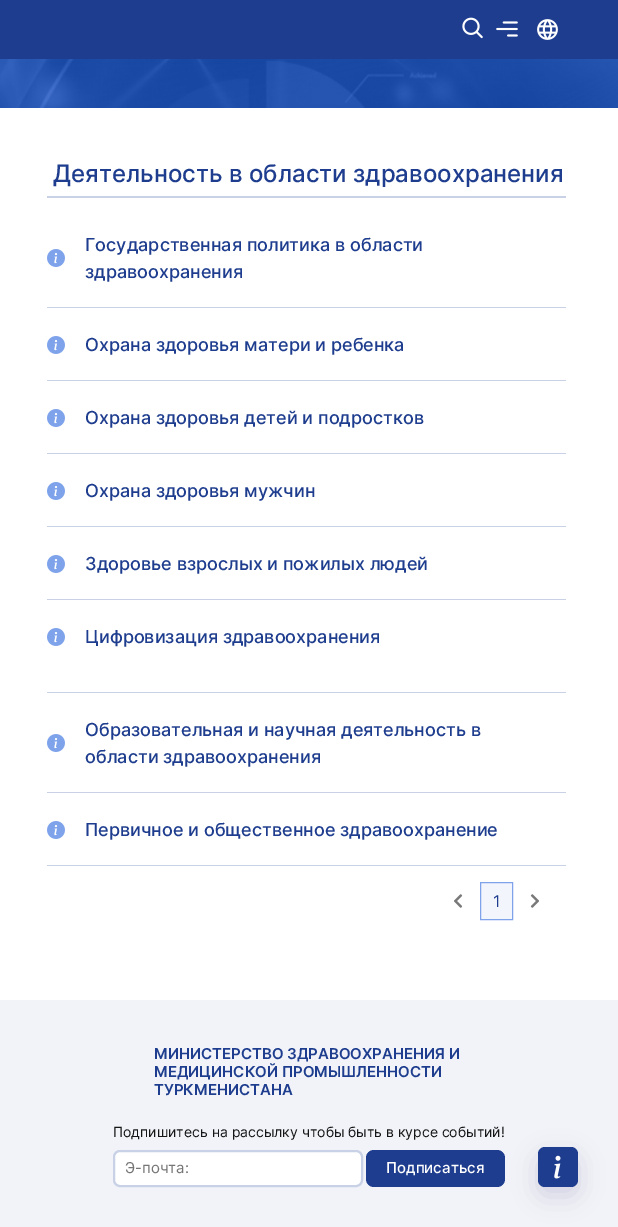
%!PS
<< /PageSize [618 1227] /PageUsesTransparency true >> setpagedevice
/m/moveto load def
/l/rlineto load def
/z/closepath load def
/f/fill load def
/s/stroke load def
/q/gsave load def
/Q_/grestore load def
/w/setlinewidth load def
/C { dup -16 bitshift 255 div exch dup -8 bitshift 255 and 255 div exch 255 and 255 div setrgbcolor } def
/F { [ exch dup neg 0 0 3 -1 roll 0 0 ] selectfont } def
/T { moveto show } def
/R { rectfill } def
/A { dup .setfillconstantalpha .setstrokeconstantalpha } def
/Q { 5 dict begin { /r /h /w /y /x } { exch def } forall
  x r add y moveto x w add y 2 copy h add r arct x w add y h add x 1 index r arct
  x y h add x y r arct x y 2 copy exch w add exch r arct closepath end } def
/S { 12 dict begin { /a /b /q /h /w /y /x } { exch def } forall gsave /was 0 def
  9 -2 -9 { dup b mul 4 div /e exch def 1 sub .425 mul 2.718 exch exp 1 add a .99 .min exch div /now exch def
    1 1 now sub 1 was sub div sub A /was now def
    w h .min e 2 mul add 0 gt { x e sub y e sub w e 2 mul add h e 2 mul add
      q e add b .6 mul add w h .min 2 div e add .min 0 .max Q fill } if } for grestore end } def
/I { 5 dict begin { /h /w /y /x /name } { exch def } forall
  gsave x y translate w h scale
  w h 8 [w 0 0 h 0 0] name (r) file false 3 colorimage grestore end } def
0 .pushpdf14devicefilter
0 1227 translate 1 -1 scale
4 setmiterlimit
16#FFFFFF C
0 0 618 1227 R
16#1E3D8E C
0 0 618 59 R
(1.rgb) 462 17 21 22 I
(2.rgb) 496 21 22 16 I
(3.rgb) 537 19 21 21 I
(4.rgb) 0 59 618 49 I
/Inter-Medium 24 F
(Деятельность в области здравоохранения) 53 182 T
16#C8D1E6 C
47 196 519 2 R
(5.rgb) 47 249 18 18 I
/Inter-Medium 18 F
16#1E3D8E C
(Государственная политика в области) 85 251 T
(здравоохранения) 85 278 T
16#C8D1E6 C
47 307 519 1 R
(5.rgb) 47 336 18 18 I
16#1E3D8E C
(Охрана здоровья матери и ребенка) 85 351 T
16#C8D1E6 C
47 380 519 1 R
(5.rgb) 47 409 18 18 I
16#1E3D8E C
(Охрана здоровья детей и подростков) 85 424 T
16#C8D1E6 C
47 453 519 1 R
(5.rgb) 47 482 18 18 I
16#1E3D8E C
(Охрана здоровья мужчин) 85 497 T
16#C8D1E6 C
47 526 519 1 R
(5.rgb) 47 555 18 18 I
16#1E3D8E C
(Здоровье взрослых и пожилых людей) 85 570 T
16#C8D1E6 C
47 599 519 1 R
(5.rgb) 47 628 18 18 I
16#1E3D8E C
(Цифровизация здравоохранения) 85 643 T
16#C8D1E6 C
47 692 519 1 R
(5.rgb) 47 734 18 18 I
16#1E3D8E C
(Образовательная и научная деятельность в) 85 736 T
(области здравоохранения) 85 763 T
16#C8D1E6 C
47 792 519 1 R
(5.rgb) 47 821 18 18 I
16#1E3D8E C
(Первичное и общественное здравоохранение) 85 836 T
16#C8D1E6 C
47 865 519 1 R
(6.rgb) 454 894 9 14 I
16#F2F6FC C
480.5 882.5 m 32 0 l 0 37 l -32 0 l z q f Q_
16#7EA3EB C
s
/Inter-Regular 16 F
16#1E3D8E C
(1) 493 907 T
(7.rgb) 530 894 9 14 I
16#F1F3F8 C
0 1000 618 227 R
16#1E3D8E C
366 1150 139 37 8 Q f
16#8480B1 C
538 1156 40 40 7 12.5 .28 S
16#1E3D8E C
538 1147 40 40 7 Q f
(8.rgb) 554 1155 7 24 I
/Inter-SemiBold 15 F
(МИНИСТЕРСТВО ЗДРАВООХРАНЕНИЯ И) 154 1059 T
(МЕДИЦИНСКОЙ ПРОМЫШЛЕННОСТИ) 154 1077 T
(ТУРКМЕНИСТАНА) 154 1095 T
/Inter-Regular 14 F
16#161616 C
(Подпишитесь на рассылку чтобы быть в курсе событий!) 113 1137 T
16#FFFFFF C
114 1151 248 35 6 Q q f Q_
16#C8D1E6 C
2 w
s
/Inter-Regular 15 F
16#757575 C
(Э-почта:) 125 1173 T
/Inter-Medium 15 F
16#FFFFFF C
(Подписаться) 386 1173 T
.poppdf14devicefilter showpage
